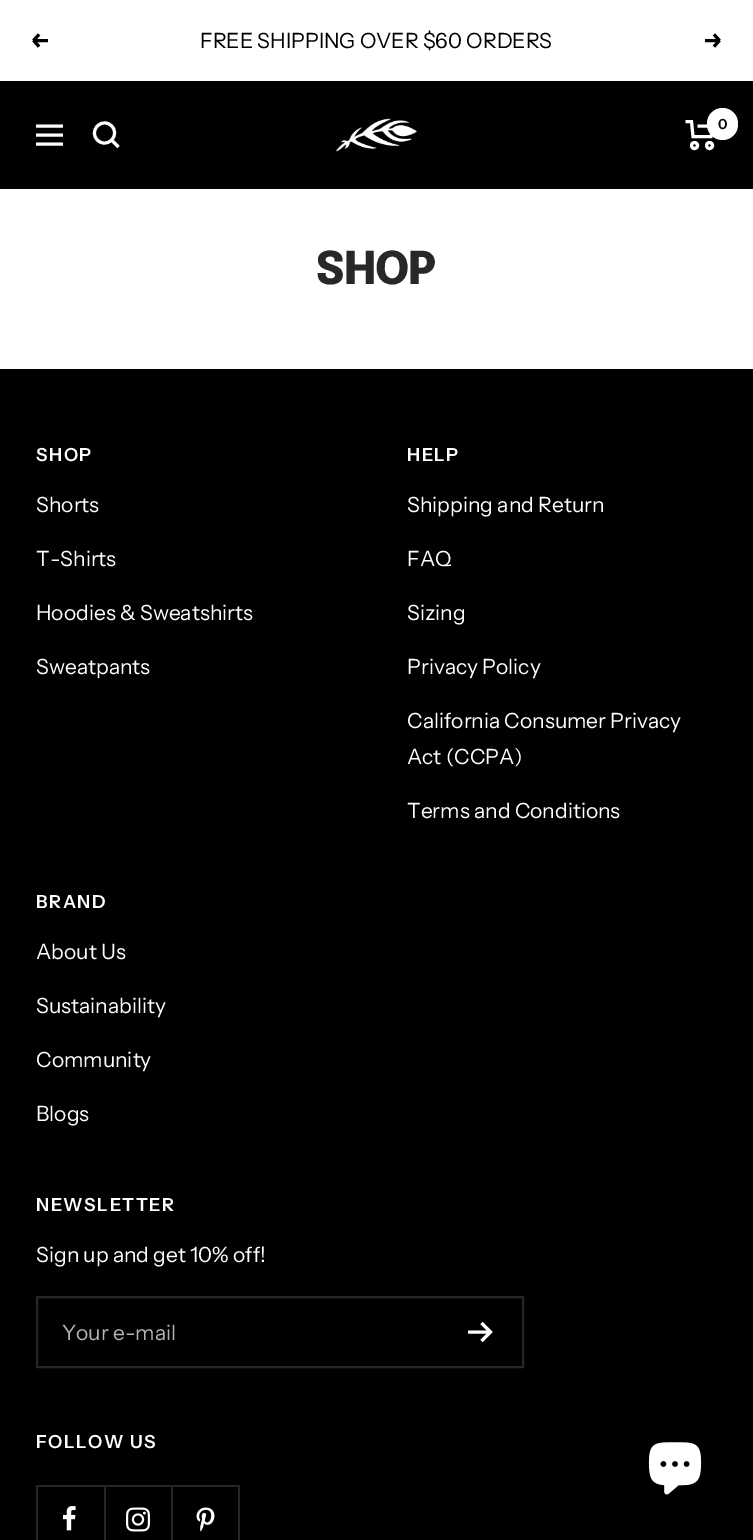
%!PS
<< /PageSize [753 1540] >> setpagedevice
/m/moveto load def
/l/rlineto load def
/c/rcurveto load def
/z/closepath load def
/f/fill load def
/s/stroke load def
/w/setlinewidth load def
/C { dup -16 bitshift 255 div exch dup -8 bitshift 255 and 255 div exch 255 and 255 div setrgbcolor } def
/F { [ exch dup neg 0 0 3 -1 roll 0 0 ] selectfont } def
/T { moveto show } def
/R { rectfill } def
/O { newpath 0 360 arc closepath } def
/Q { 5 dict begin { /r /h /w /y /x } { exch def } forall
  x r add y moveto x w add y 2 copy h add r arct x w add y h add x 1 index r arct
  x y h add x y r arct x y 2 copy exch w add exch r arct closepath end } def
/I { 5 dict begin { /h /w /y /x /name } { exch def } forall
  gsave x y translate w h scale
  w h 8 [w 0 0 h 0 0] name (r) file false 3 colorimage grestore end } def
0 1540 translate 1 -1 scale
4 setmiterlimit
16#FFFFFF C
0 0 753 1540 R
16#000000 C
3 w
48 40.5 m -14.5 0 l 33.5 40.5 m 5.5 6 l 33.5 40.5 m 5.5 -6 l s
/InstrumentSans-Regular 21 F
(FREE SHIPPING OVER $60 ORDERS) 200 48 T
705 40.5 m 14.5 0 l 719.5 40.5 m -5.5 6 l 719.5 40.5 m -5.5 -6 l s
0 81 753 108 R
16#FFFFFF C
36 126 m 27 0 l 36 144 m 27 0 l z 36 135 m 27 0 l z s
111.5 140 m 9.5 -9.5 -4.5 -23.5 -14 -14 c -9.5 9.5 4.5 23.5 14 14 c z 111.5 140 m 7 7 l s
(1.rgb) 336 118 82 34 I
685.5 121.5 m 6 0 l 1.5 15 l 18 0 l 3 -10.5 l -16.5 0 l s
694.5 145.5 3 O s
709.5 145.5 3 O s
707 108 31 32 15.5 Q f
/InstrumentSans-SemiBold 14 F
16#000000 C
(0) 718 129 T
/Epilogue-ExtraBold 45 F
16#282828 C
316 284 m -1 0 (SHOP) ashow
16#000000 C
0 369 753 1171 R
/InstrumentSans-SemiBold 18 F
16#FFFFFF C
36 461 m 1.5 0 (SHOP) ashow
/InstrumentSans-Regular 21 F
(Shorts) 36 512 T
(T-Shirts) 36 566 T
(Hoodies & Sweatshirts) 36 620 T
(Sweatpants) 36 674 T
/InstrumentSans-SemiBold 18 F
407 461 m 1.5 0 (HELP) ashow
/InstrumentSans-Regular 21 F
(Shipping and Return) 407 512 T
(FAQ) 407 566 T
(Sizing) 407 620 T
(Privacy Policy) 407 674 T
(California Consumer Privacy) 407 728 T
(Act \(CCPA\)) 407 764 T
(Terms and Conditions) 407 818 T
/InstrumentSans-SemiBold 18 F
36 908 m 1.5 0 (BRAND) ashow
/InstrumentSans-Regular 21 F
(About Us) 36 959 T
(Sustainability) 36 1013 T
(Community) 36 1067 T
(Blogs) 36 1121 T
/InstrumentSans-SemiBold 18 F
36 1211 m 1.5 0 (NEWSLETTER) ashow
/InstrumentSans-Regular 21 F
(Sign up and get 10% off!) 36 1262 T
16#262626 C
2 w
37 1297 486 70 rectstroke
16#B3B3B3 C
(Your e-mail) 62 1340 T
16#FFFFFF C
3 w
468 1332 m 22.5 0 l 481.5 1323 m 9 9 l -9 9 l s
/InstrumentSans-SemiBold 18 F
36 1448 m 1.5 0 (FOLLOW US) ashow
16#262626 C
36 1485 135 2 R
36 1485 2 55 R
(2.rgb) 63 1506 13 25 I
105 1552 m 0 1 l 68 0 l 0 -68 l -2 0 l 0 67 l z f
104 1485 2 55 R
(3.rgb) 126 1507 24 25 I
173 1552 m 0 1 l 67 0 l 0 -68 l -2 0 l 0 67 l z f
171 1485 68 2 R
(4.rgb) 196 1507 19 25 I
(5.rgb) 648 1442 54 53 I
showpage
